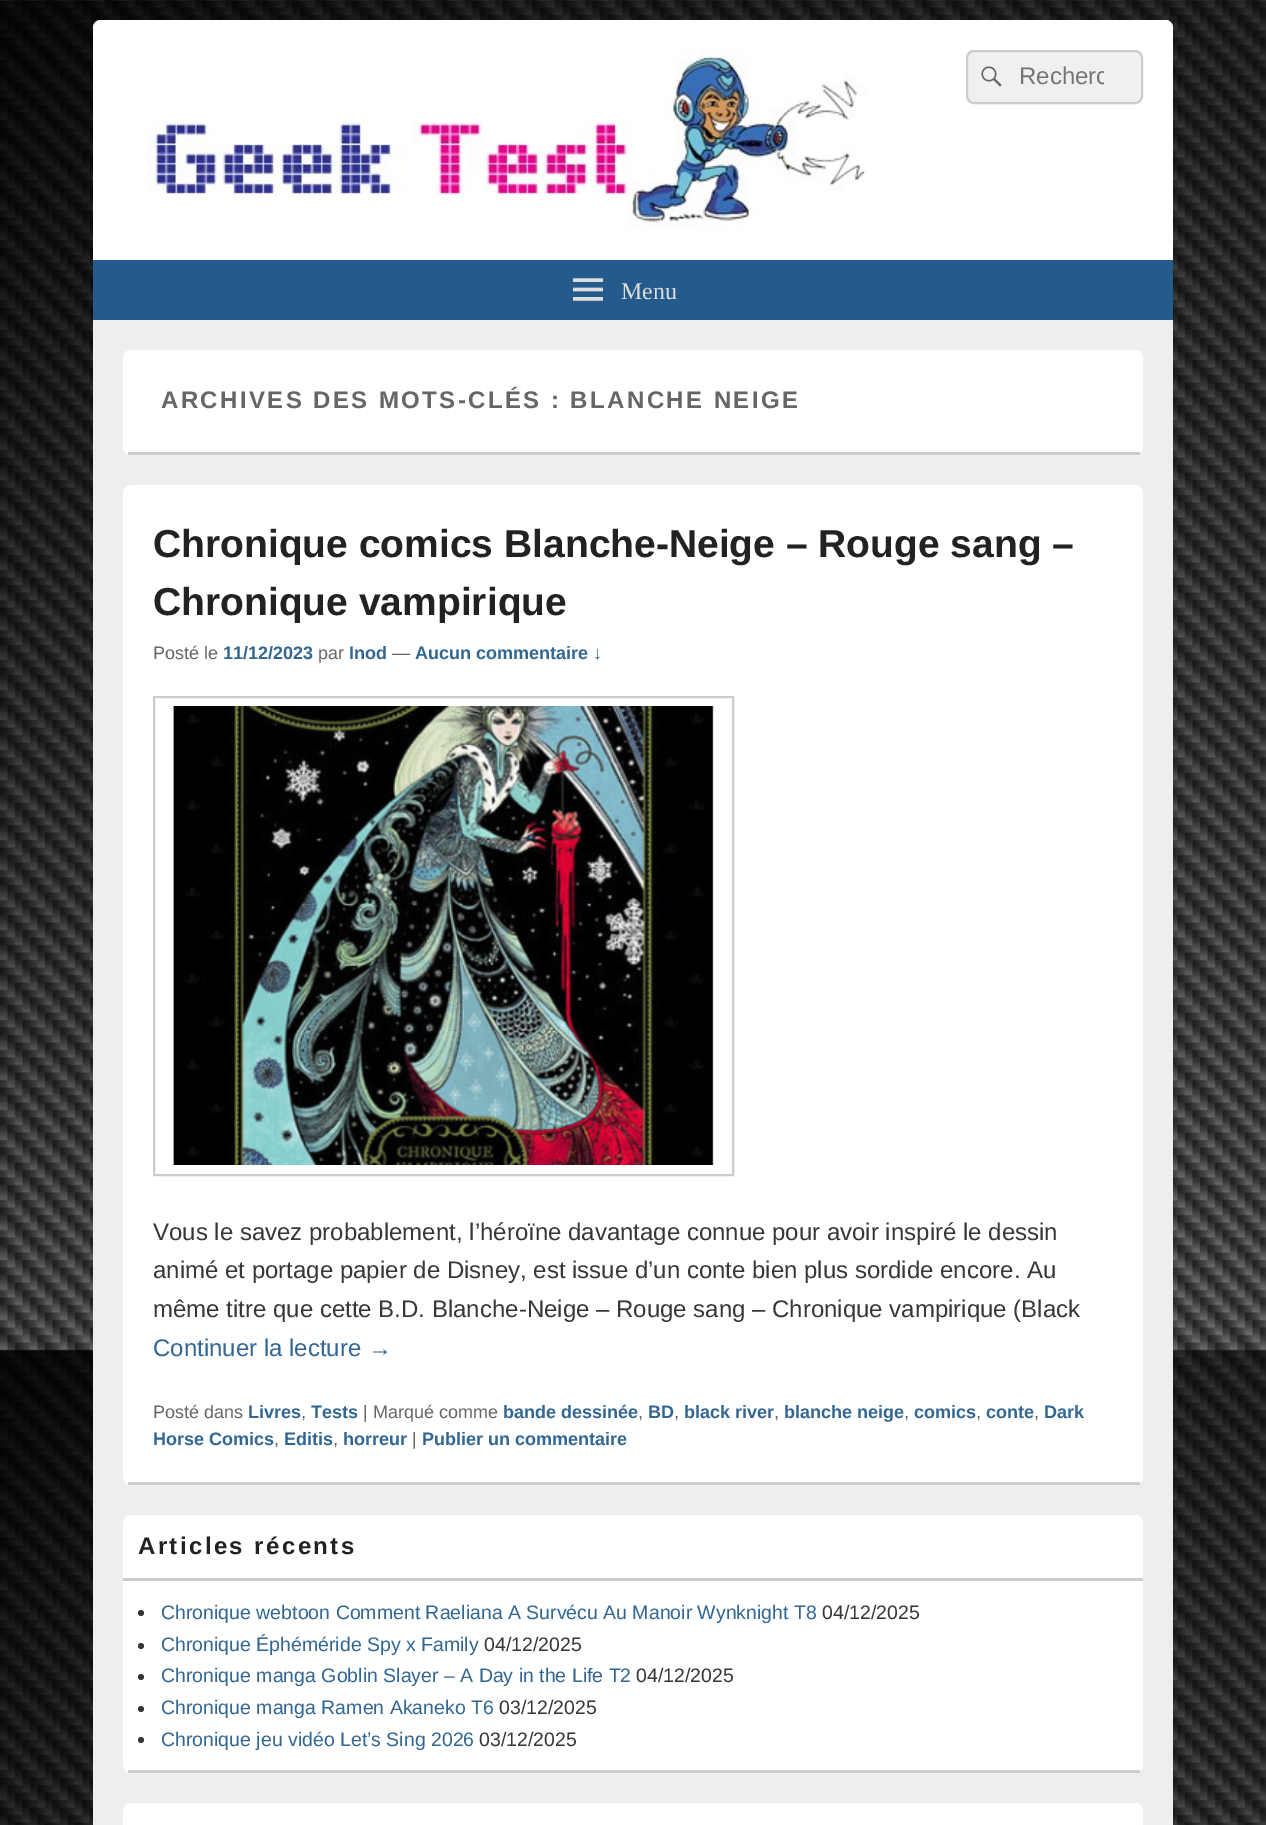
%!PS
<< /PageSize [1266 1825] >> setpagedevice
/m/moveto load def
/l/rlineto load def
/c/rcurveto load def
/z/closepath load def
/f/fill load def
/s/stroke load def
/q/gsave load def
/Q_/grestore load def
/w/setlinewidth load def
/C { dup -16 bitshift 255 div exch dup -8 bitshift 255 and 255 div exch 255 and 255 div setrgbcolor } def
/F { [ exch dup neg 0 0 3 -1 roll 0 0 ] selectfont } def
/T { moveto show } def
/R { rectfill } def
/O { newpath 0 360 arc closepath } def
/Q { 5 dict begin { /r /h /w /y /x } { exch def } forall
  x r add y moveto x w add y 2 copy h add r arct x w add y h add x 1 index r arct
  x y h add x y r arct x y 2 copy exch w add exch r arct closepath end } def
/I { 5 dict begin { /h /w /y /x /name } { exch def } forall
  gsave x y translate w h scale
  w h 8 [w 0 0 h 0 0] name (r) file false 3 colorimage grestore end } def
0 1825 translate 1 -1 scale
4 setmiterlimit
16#FFFFFF C
0 0 1266 1825 R
(1.rgb) 0 0 1266 1825 I
16#EEEEEE C
93 20 1080 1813 8 Q f
16#FFFFFF C
101 20 m 1064 0 l 4.5 0 8 3.5 8 8 c 0 292 l -1080 0 l 0 -292 l 0 -4.5 3.5 -8 8 -8 c z f
(2.rgb) 147 49 720 180 I
16#F0F0F0 C
967 51 175 52 7 Q q f Q_
16#CCCCCC C
2 w
s
(3.rgb) 981 66 21 21 I
q
1019 63 85 27 rectclip
/LiberationSans-Regular 24 F
16#757575 C
(Recherc) 1019 84 T
Q_
16#255A8C C
93 260 1080 60 R
(4.rgb) 573 278 30 23 I
/LiberationSerif-Regular 24 F
16#DDDDDD C
(Menu) 621 299 T
16#FFFFFF C
123 350 1020 105 8 Q f
16#CCCCCC C
128 452 1012 3 R
/LiberationSans-Bold 24 F
16#666666 C
161 408 m 2.4 0 (ARCHIVES DES MOTS-CLÉS : BLANCHE NEIGE) ashow
16#FFFFFF C
123 485 1020 1000 8 Q f
16#CCCCCC C
128 1482 1012 3 R
/LiberationSans-Bold 39 F
16#222222 C
(Chronique comics Blanche-Neige – Rouge sang –) 153 557 T
(Chronique vampirique) 153 615 T
/LiberationSans-Regular 18 F
16#666666 C
(Posté le) 153 659 T
/LiberationSans-Bold 18 F
16#326693 C
(11/12/2023) 223 659 T
/LiberationSans-Regular 18 F
16#666666 C
(par) 318 659 T
/LiberationSans-Bold 18 F
16#326693 C
(Inod) 349 659 T
/LiberationSans-Regular 18 F
16#666666 C
(—) 392 659 T
/LiberationSans-Bold 18 F
16#326693 C
(Aucun commentaire ↓) 415 659 T
16#CCCCCC C
154 697 579 478 rectstroke
(5.rgb) 173 706 541 459 I
/LiberationSans-Regular 24 F
16#373737 C
(Vous le savez probablement, l’héroïne davantage connue pour avoir inspiré le dessin) 153 1240 T
(animé et portage papier de Disney, est issue d’un conte bien plus sordide encore. Au) 153 1278 T
(même titre que cette B.D. Blanche-Neige – Rouge sang – Chronique vampirique \(Black) 153 1317 T
16#326693 C
(Continuer la lecture →) 153 1356 T
/LiberationSans-Regular 18 F
16#666666 C
(Posté dans) 153 1418 T
/LiberationSans-Bold 18 F
16#326693 C
(Livres) 248 1418 T
/LiberationSans-Regular 18 F
16#666666 C
(,) 301 1418 T
/LiberationSans-Bold 18 F
16#326693 C
(Tests) 311 1418 T
/LiberationSans-Regular 18 F
16#666666 C
(| Marqué comme) 363 1418 T
/LiberationSans-Bold 18 F
16#326693 C
(bande dessinée) 503 1418 T
/LiberationSans-Regular 18 F
16#666666 C
(,) 638 1418 T
/LiberationSans-Bold 18 F
16#326693 C
(BD) 648 1418 T
/LiberationSans-Regular 18 F
16#666666 C
(,) 674 1418 T
/LiberationSans-Bold 18 F
16#326693 C
(black river) 684 1418 T
/LiberationSans-Regular 18 F
16#666666 C
(,) 774 1418 T
/LiberationSans-Bold 18 F
16#326693 C
(blanche neige) 784 1418 T
/LiberationSans-Regular 18 F
16#666666 C
(,) 904 1418 T
/LiberationSans-Bold 18 F
16#326693 C
(comics) 914 1418 T
/LiberationSans-Regular 18 F
16#666666 C
(,) 976 1418 T
/LiberationSans-Bold 18 F
16#326693 C
(conte) 986 1418 T
/LiberationSans-Regular 18 F
16#666666 C
(,) 1034 1418 T
/LiberationSans-Bold 18 F
16#326693 C
(Dark) 1044 1418 T
(Horse Comics) 153 1445 T
/LiberationSans-Regular 18 F
16#666666 C
(,) 274 1445 T
/LiberationSans-Bold 18 F
16#326693 C
(Editis) 284 1445 T
/LiberationSans-Regular 18 F
16#666666 C
(,) 333 1445 T
/LiberationSans-Bold 18 F
16#326693 C
(horreur) 343 1445 T
/LiberationSans-Regular 18 F
16#666666 C
(|) 412 1445 T
/LiberationSans-Bold 18 F
16#326693 C
(Publier un commentaire) 422 1445 T
16#FFFFFF C
123 1515 1020 258 8 Q f
16#CCCCCC C
128 1770 1012 3 R
123 1578 1020 3 R
/LiberationSans-Bold 24 F
16#222222 C
138 1554 m 2.4 0 (Articles récents) ashow
16#373737 C
141 1613 3 O f
/LiberationSans-Regular 19.5 F
16#326693 C
(Chronique webtoon Comment Raeliana A Survécu Au Manoir Wynknight T8) 161 1619 T
16#373737 C
(04/12/2025) 822 1619 T
141 1646 3 O f
16#326693 C
(Chronique Éphéméride Spy x Family) 161 1651 T
16#373737 C
(04/12/2025) 484 1651 T
141 1677 3 O f
16#326693 C
(Chronique manga Goblin Slayer – A Day in the Life T2) 161 1682 T
16#373737 C
(04/12/2025) 636 1682 T
141 1709 3 O f
16#326693 C
(Chronique manga Ramen Akaneko T6) 161 1714 T
16#373737 C
(03/12/2025) 499 1714 T
141 1740 3 O f
16#326693 C
(Chronique jeu vidéo Let’s Sing 2026) 161 1746 T
16#373737 C
(03/12/2025) 479 1746 T
16#FFFFFF C
123 1803 1020 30 8 Q f
showpage
